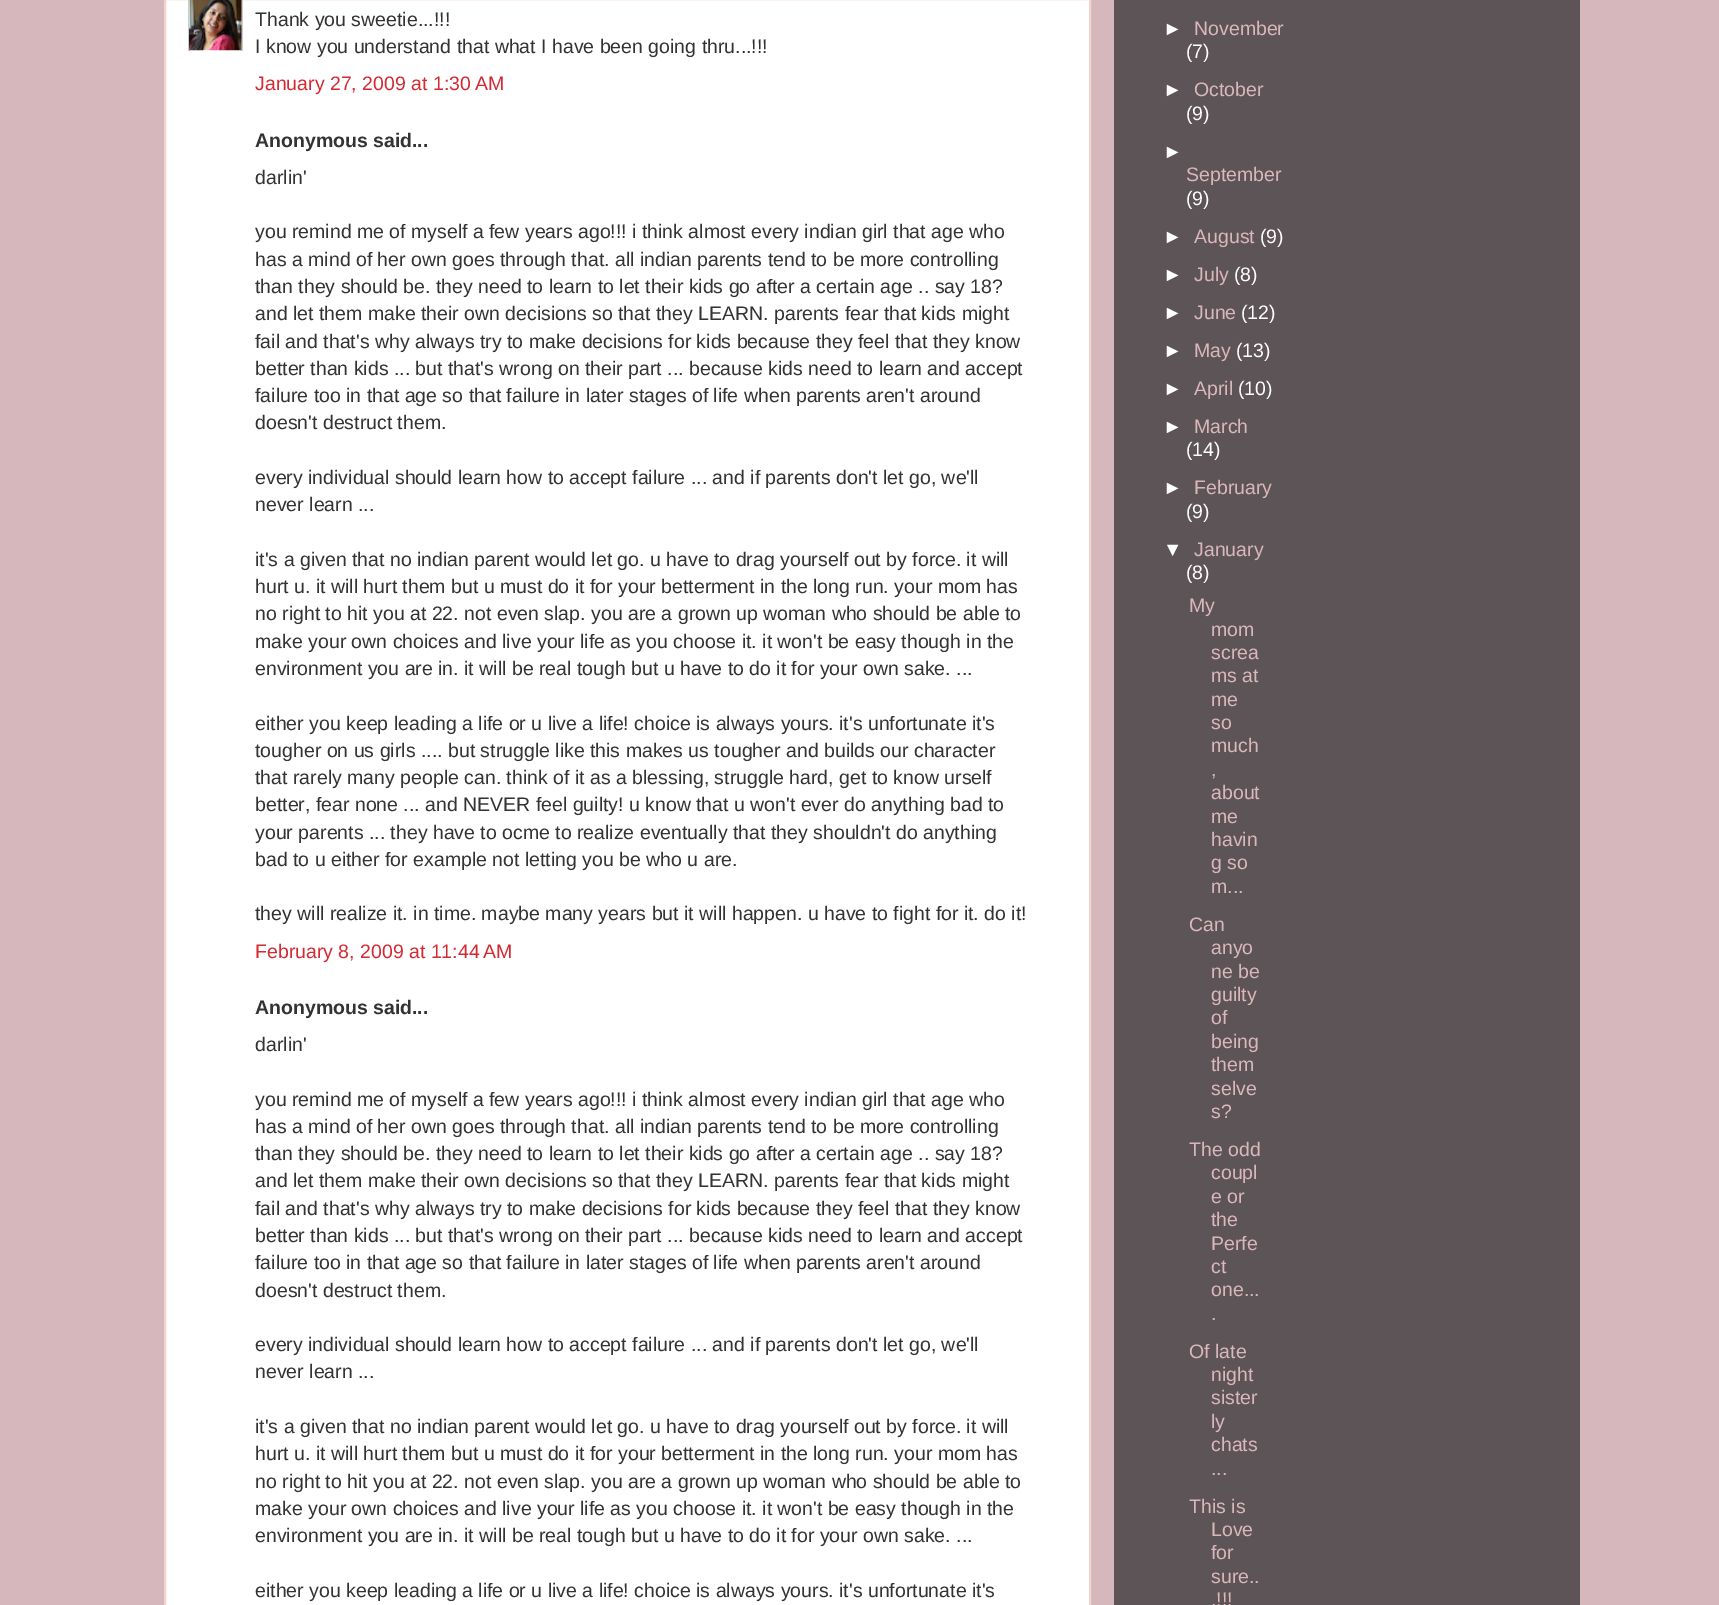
%!PS
<< /PageSize [1719 1605] >> setpagedevice
/m/moveto load def
/l/rlineto load def
/z/closepath load def
/f/fill load def
/s/stroke load def
/q/gsave load def
/Q_/grestore load def
/w/setlinewidth load def
/C { dup -16 bitshift 255 div exch dup -8 bitshift 255 and 255 div exch 255 and 255 div setrgbcolor } def
/F { [ exch dup neg 0 0 3 -1 roll 0 0 ] selectfont } def
/T { moveto show } def
/R { rectfill } def
/I { 5 dict begin { /h /w /y /x /name } { exch def } forall
  gsave x y translate w h scale
  w h 8 [w 0 0 h 0 0] name (r) file false 3 colorimage grestore end } def
0 1605 translate 1 -1 scale
4 setmiterlimit
16#D5B7BC C
0 0 1719 1605 R
16#FFFFFF C
165 -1 m 925 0 l 0 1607 l -925 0 l z q f Q_
16#F4D3CC C
2 w
s
q
188 0 55 51 rectclip
16#CCCCCC C
189 -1 53 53 rectstroke
Q_
(1.rgb) 189 0 53 51 I
/LiberationSans-Regular 19.5 F
16#333333 C
(Thank you sweetie...!!!) 255 26 T
(I know you understand that what I have been going thru...!!!) 255 53 T
16#D52A33 C
(January 27, 2009 at 1:30 AM) 255 90 T
/LiberationSans-Bold 19.5 F
16#333333 C
(Anonymous said...) 255 147 T
/LiberationSans-Regular 19.5 F
(darlin') 255 184 T
(you remind me of myself a few years ago!!! i think almost every indian girl that age who) 255 238 T
(has a mind of her own goes through that. all indian parents tend to be more controlling) 255 266 T
(than they should be. they need to learn to let their kids go after a certain age .. say 18?) 255 293 T
(and let them make their own decisions so that they LEARN. parents fear that kids might) 255 320 T
(fail and that's why always try to make decisions for kids because they feel that they know) 255 348 T
(better than kids ... but that's wrong on their part ... because kids need to learn and accept) 255 375 T
(failure too in that age so that failure in later stages of life when parents aren't around) 255 402 T
(doesn't destruct them.) 255 429 T
(every individual should learn how to accept failure ... and if parents don't let go, we'll) 255 484 T
(never learn ...) 255 511 T
(it's a given that no indian parent would let go. u have to drag yourself out by force. it will) 255 566 T
(hurt u. it will hurt them but u must do it for your betterment in the long run. your mom has) 255 593 T
(no right to hit you at 22. not even slap. you are a grown up woman who should be able to) 255 620 T
(make your own choices and live your life as you choose it. it won't be easy though in the) 255 648 T
(environment you are in. it will be real tough but u have to do it for your own sake. ...) 255 675 T
(either you keep leading a life or u live a life! choice is always yours. it's unfortunate it's) 255 730 T
(tougher on us girls .... but struggle like this makes us tougher and builds our character) 255 757 T
(that rarely many people can. think of it as a blessing, struggle hard, get to know urself) 255 784 T
(better, fear none ... and NEVER feel guilty! u know that u won't ever do anything bad to) 255 811 T
(your parents ... they have to ocme to realize eventually that they shouldn't do anything) 255 839 T
(bad to u either for example not letting you be who u are.) 255 866 T
(they will realize it. in time. maybe many years but it will happen. u have to fight for it. do it!) 255 920 T
16#D52A33 C
(February 8, 2009 at 11:44 AM) 255 958 T
/LiberationSans-Bold 19.5 F
16#333333 C
(Anonymous said...) 255 1014 T
/LiberationSans-Regular 19.5 F
(darlin') 255 1051 T
(you remind me of myself a few years ago!!! i think almost every indian girl that age who) 255 1106 T
(has a mind of her own goes through that. all indian parents tend to be more controlling) 255 1133 T
(than they should be. they need to learn to let their kids go after a certain age .. say 18?) 255 1160 T
(and let them make their own decisions so that they LEARN. parents fear that kids might) 255 1187 T
(fail and that's why always try to make decisions for kids because they feel that they know) 255 1215 T
(better than kids ... but that's wrong on their part ... because kids need to learn and accept) 255 1242 T
(failure too in that age so that failure in later stages of life when parents aren't around) 255 1269 T
(doesn't destruct them.) 255 1297 T
(every individual should learn how to accept failure ... and if parents don't let go, we'll) 255 1351 T
(never learn ...) 255 1378 T
(it's a given that no indian parent would let go. u have to drag yourself out by force. it will) 255 1433 T
(hurt u. it will hurt them but u must do it for your betterment in the long run. your mom has) 255 1460 T
(no right to hit you at 22. not even slap. you are a grown up woman who should be able to) 255 1488 T
(make your own choices and live your life as you choose it. it won't be easy though in the) 255 1515 T
(environment you are in. it will be real tough but u have to do it for your own sake. ...) 255 1542 T
(either you keep leading a life or u live a life! choice is always yours. it's unfortunate it's) 255 1597 T
16#5C5456 C
1114 0 466 1605 R
16#FFFFFF C
(►) 1163 35 T
16#DAB7BC C
(November) 1194 35 T
16#FFFFFF C
(\(7\)) 1186 58 T
(►) 1163 96 T
16#DAB7BC C
(October) 1194 96 T
16#FFFFFF C
(\(9\)) 1186 120 T
(►) 1163 158 T
16#DAB7BC C
(September) 1186 181 T
16#FFFFFF C
(\(9\)) 1186 205 T
(►) 1163 243 T
16#DAB7BC C
(August) 1194 243 T
16#FFFFFF C
(\(9\)) 1260 243 T
(►) 1163 281 T
16#DAB7BC C
(July) 1194 281 T
16#FFFFFF C
(\(8\)) 1234 281 T
(►) 1163 319 T
16#DAB7BC C
(June) 1194 319 T
16#FFFFFF C
(\(12\)) 1241 319 T
(►) 1163 357 T
16#DAB7BC C
(May) 1194 357 T
16#FFFFFF C
(\(13\)) 1236 357 T
(►) 1163 395 T
16#DAB7BC C
(April) 1194 395 T
16#FFFFFF C
(\(10\)) 1238 395 T
(►) 1163 433 T
16#DAB7BC C
(March) 1194 433 T
16#FFFFFF C
(\(14\)) 1186 456 T
(►) 1163 494 T
16#DAB7BC C
(February) 1194 494 T
16#FFFFFF C
(\(9\)) 1186 518 T
(▼) 1163 556 T
16#DAB7BC C
(January) 1194 556 T
16#FFFFFF C
(\(8\)) 1186 579 T
16#DAB7BC C
(My) 1189 612 T
(mom) 1211 636 T
(screa) 1211 659 T
(ms at) 1211 682 T
(me) 1211 706 T
(so) 1211 729 T
(much) 1211 752 T
(,) 1211 776 T
(about) 1211 799 T
(me) 1211 823 T
(havin) 1211 846 T
(g so) 1211 869 T
(m...) 1211 893 T
(Can) 1189 931 T
(anyo) 1211 954 T
(ne be) 1211 978 T
(guilty) 1211 1001 T
(of) 1211 1024 T
(being) 1211 1048 T
(them) 1211 1071 T
(selve) 1211 1095 T
(s?) 1211 1118 T
(The odd) 1189 1156 T
(coupl) 1211 1179 T
(e or) 1211 1203 T
(the) 1211 1226 T
(Perfe) 1211 1250 T
(ct) 1211 1273 T
(one...) 1211 1296 T
(.) 1211 1320 T
(Of late) 1189 1358 T
(night) 1211 1381 T
(sister) 1211 1404 T
(ly) 1211 1428 T
(chats) 1211 1451 T
(...) 1211 1475 T
(This is) 1189 1513 T
(Love) 1211 1536 T
(for) 1211 1559 T
(sure..) 1211 1583 T
(.!!!) 1211 1606 T
showpage
